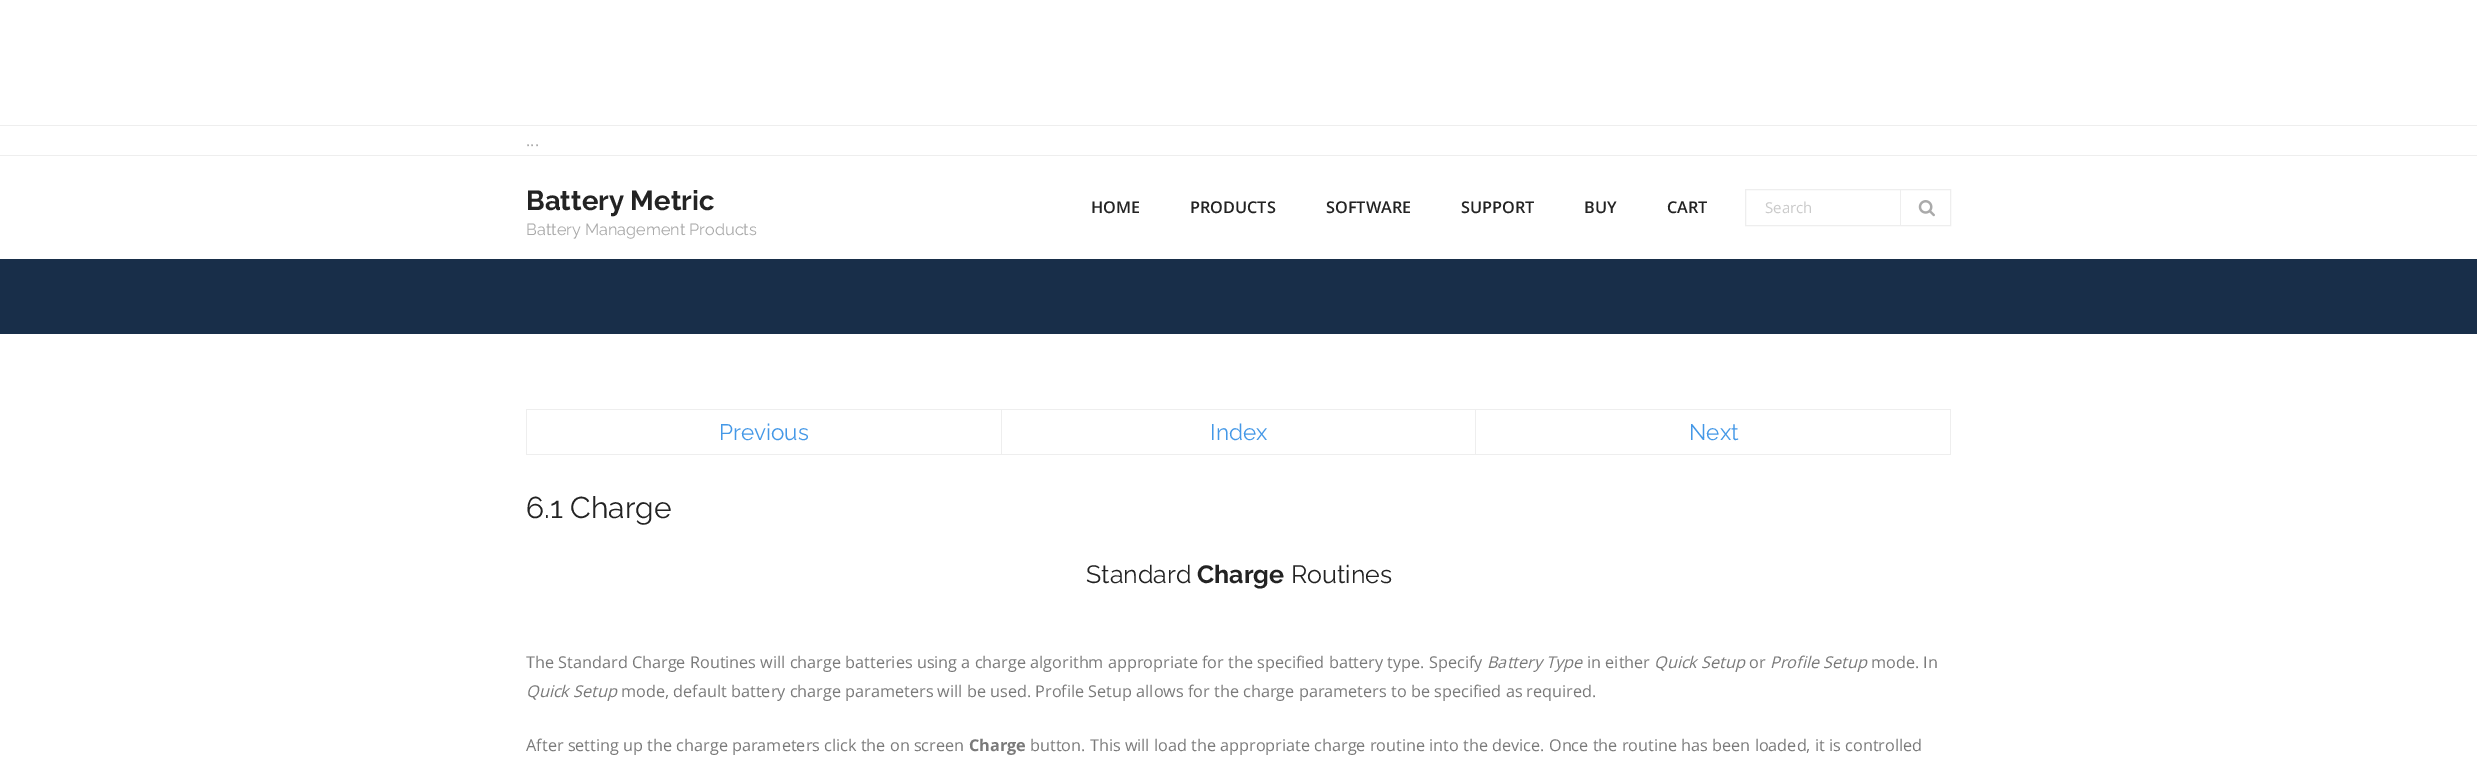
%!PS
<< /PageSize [2477 757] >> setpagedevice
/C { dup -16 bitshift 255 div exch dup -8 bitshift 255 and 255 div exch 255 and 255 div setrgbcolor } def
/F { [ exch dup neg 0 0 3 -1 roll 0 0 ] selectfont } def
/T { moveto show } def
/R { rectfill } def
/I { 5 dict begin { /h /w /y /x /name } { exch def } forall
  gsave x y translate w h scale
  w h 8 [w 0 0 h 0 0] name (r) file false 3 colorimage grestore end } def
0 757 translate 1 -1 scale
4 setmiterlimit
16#FFFFFF C
0 0 2477 757 R
16#EEEEEE C
0 125 2477 1 R
0 155 2477 1 R
/OpenSans-Regular 16.25 F
16#AAAAAA C
(...) 526 146 T
/Raleway-Bold 27.5 F
16#232323 C
(Battery Metric) 526 210 T
/Raleway-Regular 16.25 F
16#AAAAAA C
(Battery Management Products) 526 235 T
/OpenSans-SemiBold 16.25 F
16#232323 C
(HOME) 1091 213 T
(PRODUCTS) 1190 213 T
(SOFTWARE) 1326 213 T
(SUPPORT) 1461 213 T
(BUY) 1584 213 T
(CART) 1667 213 T
16#EEEEEE C
1745.5 189.5 205 36 rectstroke
/OpenSans-Regular 15 F
16#CACACA C
(Search) 1765 213 T
16#EEEEEE C
1900 189 1 37 R
(1.rgb) 1918 200 17 17 I
16#182E49 C
0 259 2477 75 R
16#EEEEEE C
526 409 1425 1 R
1950 409 1 46 R
526 454 1425 1 R
526 409 1 46 R
1001 409 1 46 R
/Raleway-Regular 22.5 F
16#4498E7 C
(Previous) 719 440 T
16#EEEEEE C
1475 409 1 46 R
16#4498E7 C
(Index) 1210 440 T
(Next) 1689 440 T
/Raleway-Regular 30 F
16#232323 C
(6.1 Charge) 526 518 T
/Raleway-Regular 25 F
(Standard) 1086 583 T
/Raleway-Bold 25 F
(Charge) 1197 583 T
/Raleway-Regular 25 F
(Routines) 1291 583 T
/OpenSans-Regular 16.25 F
16#7A7A7A C
(The Standard Charge Routines will charge batteries using a charge algorithm appropriate for the specified battery type. Specify) 526 668 T
/OpenSans-Italic 16.25 F
(Battery Type) 1487 668 T
/OpenSans-Regular 16.25 F
(in either) 1587 668 T
/OpenSans-Italic 16.25 F
(Quick Setup) 1654 668 T
/OpenSans-Regular 16.25 F
(or) 1749 668 T
/OpenSans-Italic 16.25 F
(Profile Setup) 1770 668 T
/OpenSans-Regular 16.25 F
(mode. In) 1871 668 T
/OpenSans-Italic 16.25 F
(Quick Setup) 526 697 T
/OpenSans-Regular 16.25 F
(mode, default battery charge parameters will be used. Profile Setup allows for the charge parameters to be specified as required.) 621 697 T
(After setting up the charge parameters click the on screen) 526 751 T
/OpenSans-Bold 16.25 F
(Charge) 969 751 T
/OpenSans-Regular 16.25 F
(button. This will load the appropriate charge routine into the device. Once the routine has been loaded, it is controlled) 1030 751 T
showpage
